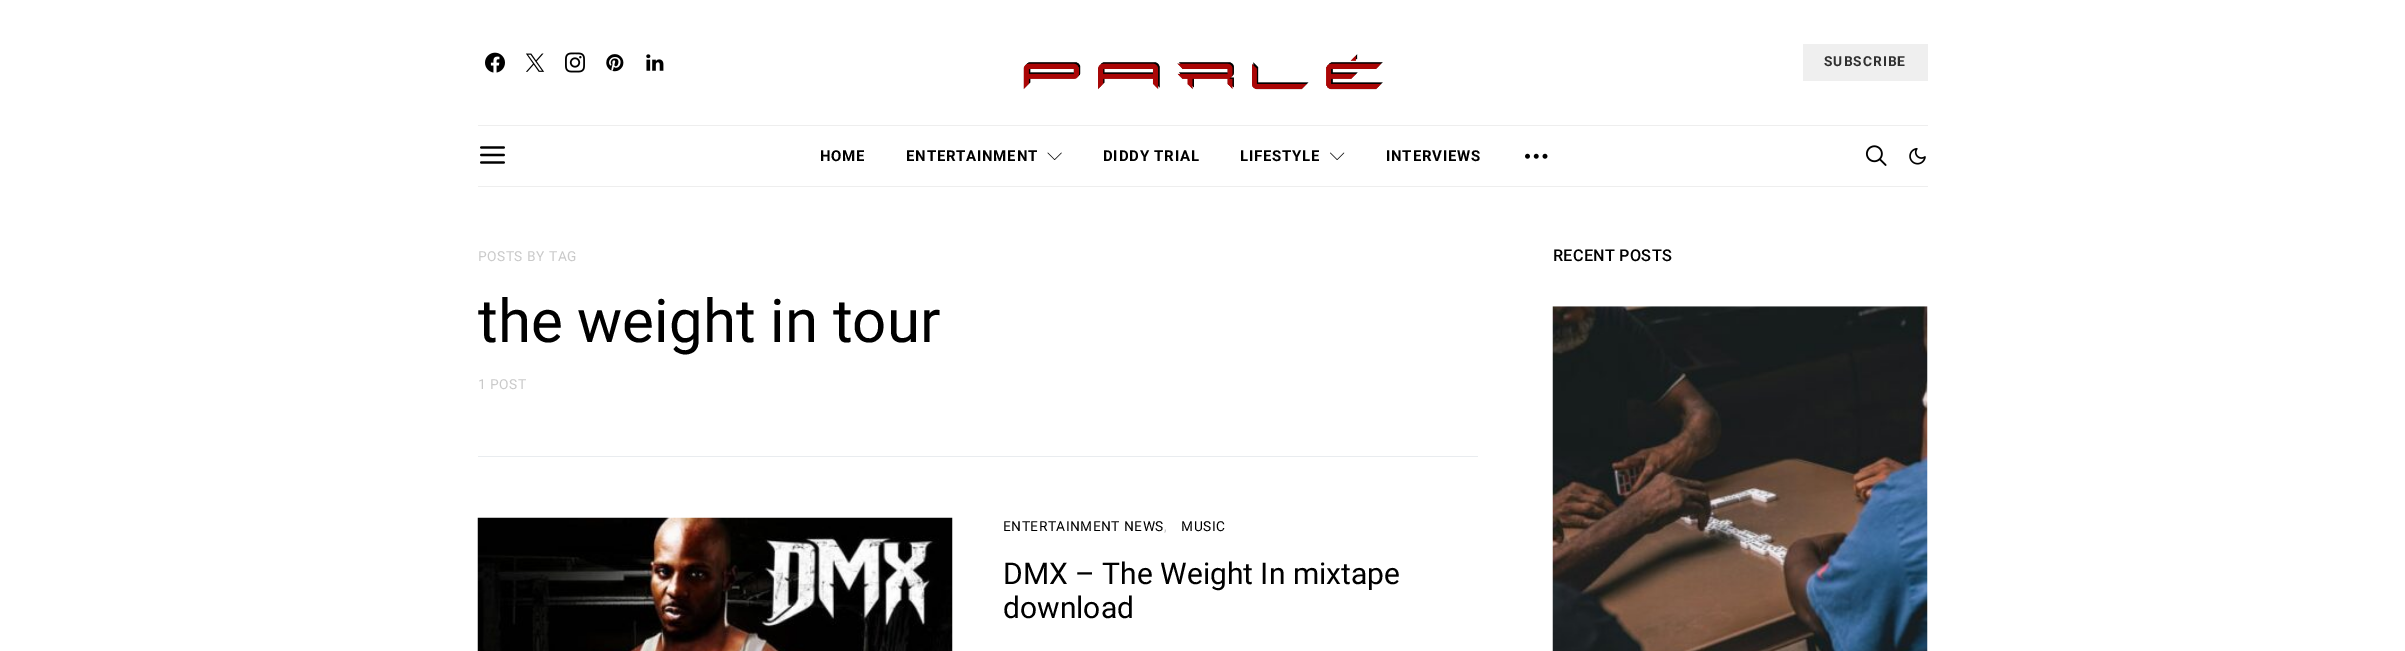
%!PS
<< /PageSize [2405 651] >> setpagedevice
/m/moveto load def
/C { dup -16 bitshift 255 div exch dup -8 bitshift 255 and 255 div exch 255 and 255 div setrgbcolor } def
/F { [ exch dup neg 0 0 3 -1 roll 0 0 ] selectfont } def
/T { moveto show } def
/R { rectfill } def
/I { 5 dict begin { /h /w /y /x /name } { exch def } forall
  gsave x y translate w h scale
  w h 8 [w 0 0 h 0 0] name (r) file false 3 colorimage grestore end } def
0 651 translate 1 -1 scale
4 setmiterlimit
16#FFFFFF C
0 0 2405 651 R
(1.rgb) 485 52 20 21 I
(2.rgb) 526 53 19 19 I
(3.rgb) 565 52 20 21 I
(4.rgb) 606 54 18 18 I
(5.rgb) 646 54 18 17 I
(6.rgb) 1023 54 360 36 I
16#EFEFEF C
1803 44 125 37 R
/Roboto-Bold 13.75 F
16#303030 C
1824 66 m 1 0 (SUBSCRIBE) ashow
16#EEEEEE C
478 125 1450 1 R
478 186 1450 1 R
(7.rgb) 480 146 25 18 I
/Roboto-Bold 15 F
16#000000 C
820 161 m .75 0 (HOME) ashow
906 161 m .75 0 (ENTERTAINMENT) ashow
(8.rgb) 1047 152 15 8 I
1103 161 m .75 0 (DIDDY TRIAL) ashow
1240 161 m .75 0 (LIFESTYLE) ashow
(9.rgb) 1330 152 15 8 I
1386 161 m .75 0 (INTERVIEWS) ashow
(10.rgb) 1525 153 23 6 I
(11.rgb) 1865 145 22 21 I
(12.rgb) 1909 147 17 18 I
/Roboto-Regular 13.75 F
16#C9C9C9 C
478 261 m .5 0 (POSTS BY TAG) ashow
/Roboto-Regular 60 F
16#000000 C
(the weight in tour) 478 342 T
/Roboto-Regular 13.75 F
16#C9C9C9 C
478 389 m .5 0 (1 POST) ashow
16#E9ECEF C
478 456 1000 1 R
(13.rgb) 477 517 476 134 I
16#000000 C
1003 531 m .5 0 (ENTERTAINMENT NEWS) ashow
16#C9C9C9 C
1164 531 m .5 0 (,) ashow
16#000000 C
1181 531 m .5 0 (MUSIC) ashow
/Roboto-Regular 30 F
(DMX – The Weight In mixtape) 1003 584 T
(download) 1003 618 T
/Roboto-Medium 16.25 F
1553 261 m .25 0 (RECENT POSTS) ashow
(14.rgb) 1552 306 376 345 I
showpage
